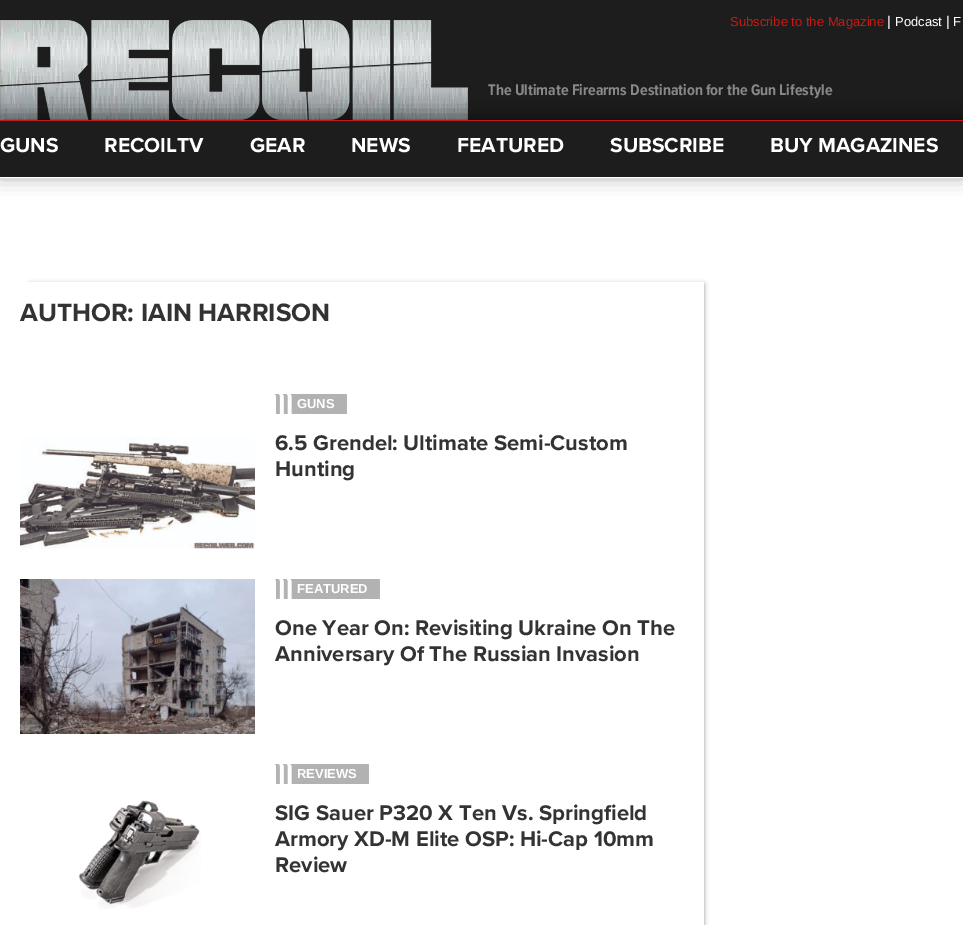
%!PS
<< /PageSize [963 925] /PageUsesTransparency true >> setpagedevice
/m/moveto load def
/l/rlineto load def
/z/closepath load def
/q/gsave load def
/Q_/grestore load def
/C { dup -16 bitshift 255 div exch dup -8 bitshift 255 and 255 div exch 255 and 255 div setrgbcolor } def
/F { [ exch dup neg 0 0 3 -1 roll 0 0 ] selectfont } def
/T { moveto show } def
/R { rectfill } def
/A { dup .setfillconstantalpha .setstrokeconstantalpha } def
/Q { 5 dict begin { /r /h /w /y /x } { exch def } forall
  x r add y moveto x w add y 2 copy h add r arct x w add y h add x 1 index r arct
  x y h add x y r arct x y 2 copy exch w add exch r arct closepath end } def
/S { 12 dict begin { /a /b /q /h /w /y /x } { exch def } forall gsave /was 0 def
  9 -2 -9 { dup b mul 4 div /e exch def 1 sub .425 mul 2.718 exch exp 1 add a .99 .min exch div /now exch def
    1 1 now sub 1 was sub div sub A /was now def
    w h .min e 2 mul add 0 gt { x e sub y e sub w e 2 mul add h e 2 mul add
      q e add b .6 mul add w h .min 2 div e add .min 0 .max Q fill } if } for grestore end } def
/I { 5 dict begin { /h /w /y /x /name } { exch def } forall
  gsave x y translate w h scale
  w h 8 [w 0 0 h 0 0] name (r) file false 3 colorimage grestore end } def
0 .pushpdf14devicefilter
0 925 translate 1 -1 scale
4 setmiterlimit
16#FFFFFF C
0 0 963 925 R
16#1D1D1D C
0 0 963 177 R
(1.rgb) 0 20 468 100 I
/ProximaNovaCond-Bold 16 F
16#888888 C
(The Ultimate Firearms Destination for the Gun Lifestyle) 488 95 T
/LiberationSans-Regular 13 F
16#C51915 C
(Subscribe to the Magazine) 730 26 T
/LiberationSans-Regular 14 F
16#FFFFFF C
(|) 887 26 T
/LiberationSans-Regular 13 F
(Podcast) 895 26 T
/LiberationSans-Regular 14 F
(|) 946 26 T
/LiberationSans-Regular 13 F
(F) 953 26 T
q
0 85 m 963 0 l 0 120 l -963 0 l z 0 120 m 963 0 l 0 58 l -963 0 l z eoclip newpath
16#000000 C
0 116 963 58 0 10 .45 S
Q_
16#C51915 C
0 120 963 1 R
/ProximaNova-Bold 21 F
16#FFFFFF C
(GUNS) 0 152 T
(RECOILTV) 104 152 T
(GEAR) 250 152 T
(NEWS) 351 152 T
(FEATURED) 457 152 T
(SUBSCRIBE) 610 152 T
(BUY MAGAZINES) 770 152 T
q
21 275 m 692 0 l 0 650 l -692 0 l z 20 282 m 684 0 l 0 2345 l -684 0 l z eoclip newpath
16#999999 C
30 284 674 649 0 2.5 1 S
Q_
/ProximaNova-Bold 26 F
16#333333 C
(AUTHOR: IAIN HARRISON) 20 321 T
(2.rgb) 20 437 235 112 I
(3.rgb) 275 394 18 20 I
16#B2B2B2 C
293 394 52 20 R
/LiberationSans-Bold 13 F
16#FFFFFF C
(GUNS) 297 408 T
(4.rgb) 345 394 2 20 I
/ProximaNova-Bold 22 F
16#333333 C
(6.5 Grendel: Ultimate Semi-Custom) 275 450 T
(Hunting) 275 476 T
(5.rgb) 20 579 235 155 I
(3.rgb) 275 579 18 20 I
16#B2B2B2 C
293 579 85 20 R
/LiberationSans-Bold 13 F
16#FFFFFF C
(FEATURED) 297 593 T
(4.rgb) 378 579 2 20 I
/ProximaNova-Bold 22 F
16#333333 C
(One Year On: Revisiting Ukraine On The) 275 635 T
(Anniversary Of The Russian Invasion) 275 661 T
(6.rgb) 78 800 123 109 I
(3.rgb) 275 764 18 20 I
16#B2B2B2 C
293 764 74 20 R
/LiberationSans-Bold 13 F
16#FFFFFF C
(REVIEWS) 297 778 T
(4.rgb) 367 764 2 20 I
/ProximaNova-Bold 22 F
16#333333 C
(SIG Sauer P320 X Ten Vs. Springfield) 275 820 T
(Armory XD-M Elite OSP: Hi-Cap 10mm) 275 846 T
(Review) 275 872 T
.poppdf14devicefilter showpage
